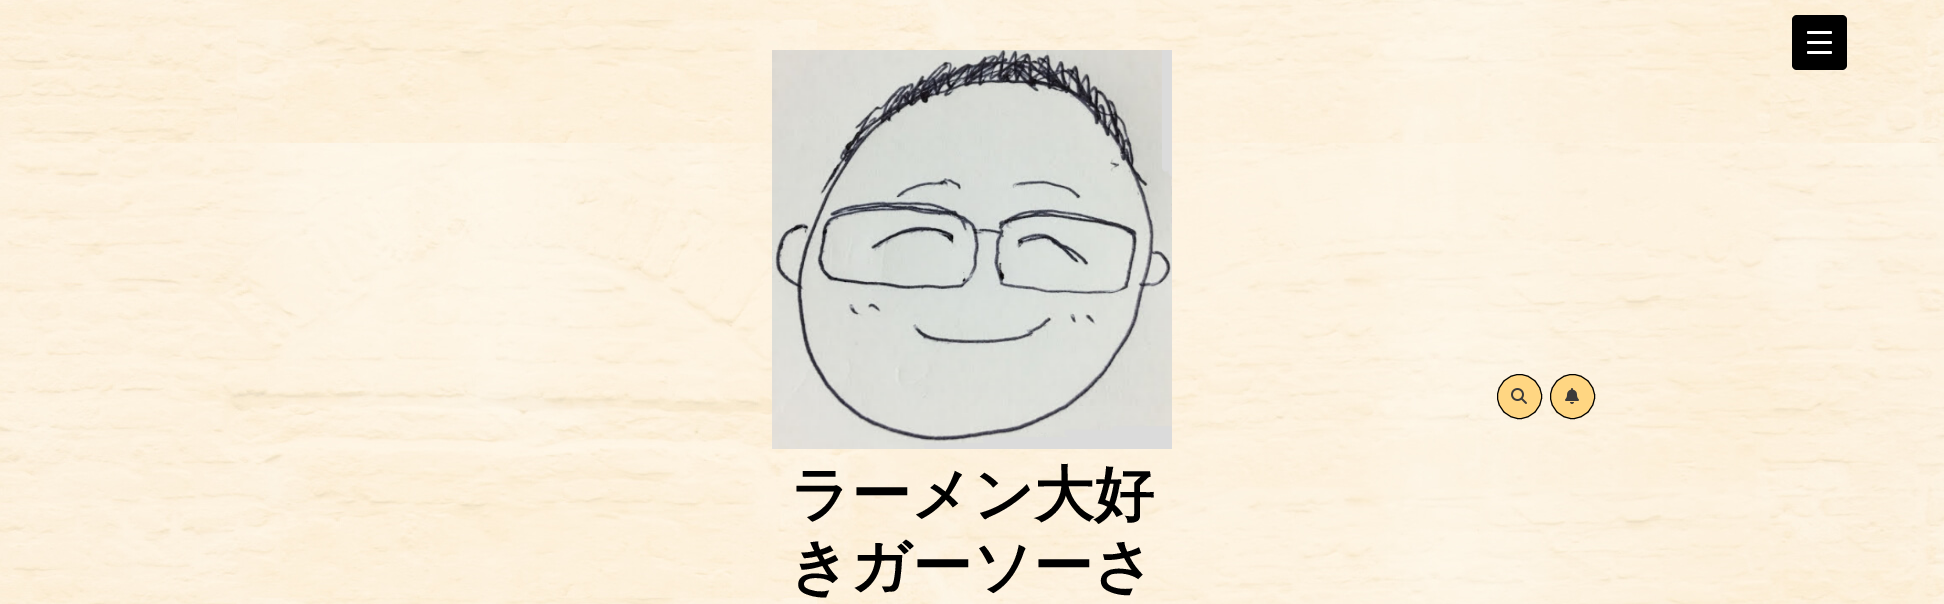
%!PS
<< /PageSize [1944 604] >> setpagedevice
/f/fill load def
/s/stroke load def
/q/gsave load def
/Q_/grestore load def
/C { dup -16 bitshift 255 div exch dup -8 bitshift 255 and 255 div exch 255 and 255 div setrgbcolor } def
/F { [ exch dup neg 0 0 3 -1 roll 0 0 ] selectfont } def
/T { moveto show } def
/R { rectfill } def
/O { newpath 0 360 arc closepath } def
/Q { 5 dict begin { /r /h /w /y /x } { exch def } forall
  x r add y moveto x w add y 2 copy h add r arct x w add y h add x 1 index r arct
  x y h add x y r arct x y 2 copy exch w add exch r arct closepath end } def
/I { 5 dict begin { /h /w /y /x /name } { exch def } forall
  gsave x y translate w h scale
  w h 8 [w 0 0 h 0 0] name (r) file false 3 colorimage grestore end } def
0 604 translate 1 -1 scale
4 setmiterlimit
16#FFFFFF C
0 0 1944 604 R
(1.rgb) 0 0 1944 604 I
16#000000 C
1792 15 55 55 5 Q f
16#FFFFFF C
1807 41 25 3 1.5 Q f
1807 31 25 3 1.5 Q f
1807 51 25 3 1.5 Q f
16#FFD682 C
1519.5 396.5 22 O q f Q_
16#000000 C
s
(2.rgb) 1511 388 16 16 I
16#FFD682 C
1572.5 396.5 22 O q f Q_
16#000000 C
s
(3.rgb) 1565 388 14 16 I
(4.rgb) 772 50 400 399 I
/WenQuanYiZenHei-Bold 60 F
(ラーメン大好) 790 515 T
(きガーソーさ) 789 587 T
showpage
